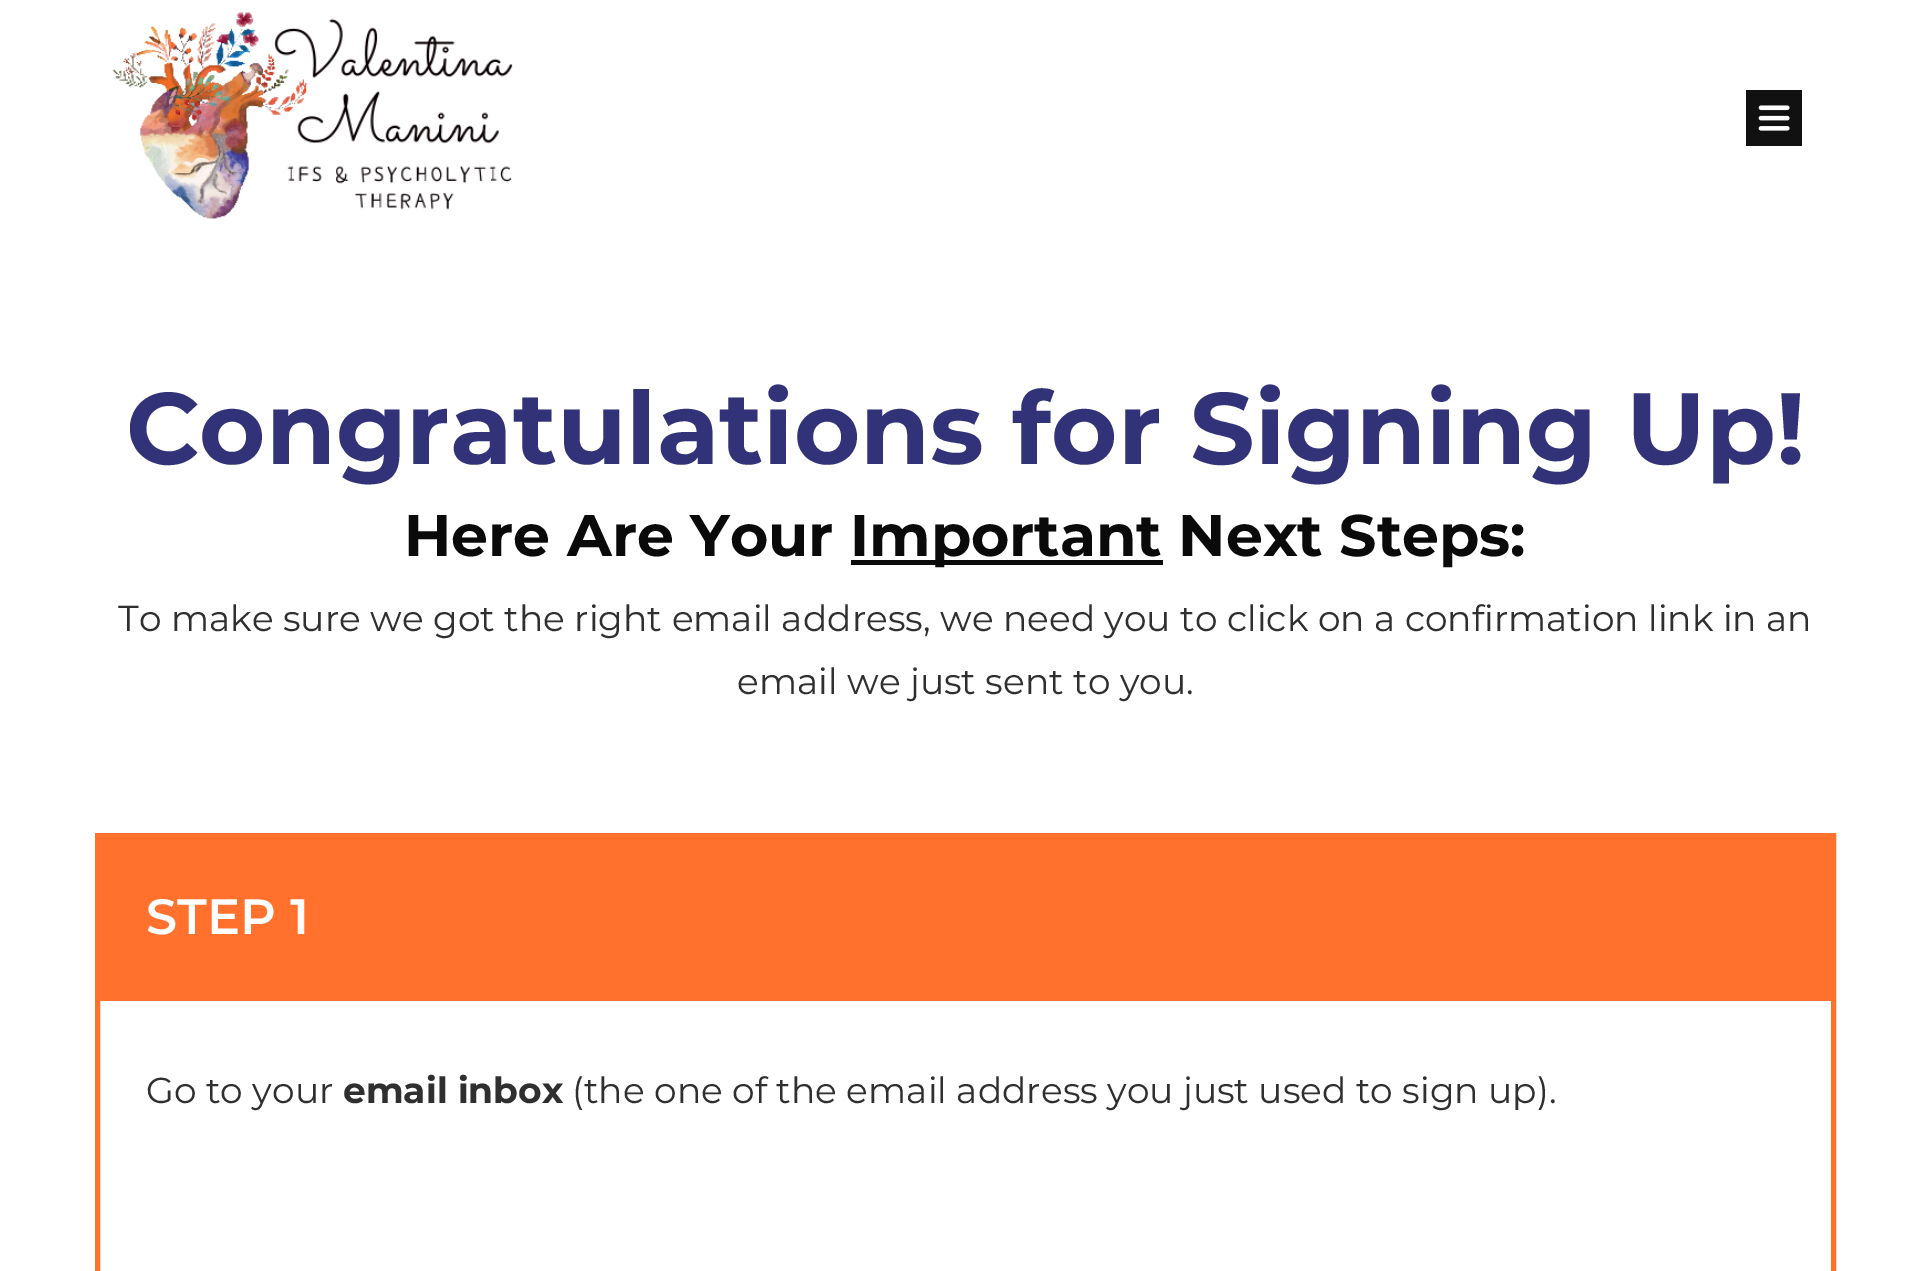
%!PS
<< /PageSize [1930 1271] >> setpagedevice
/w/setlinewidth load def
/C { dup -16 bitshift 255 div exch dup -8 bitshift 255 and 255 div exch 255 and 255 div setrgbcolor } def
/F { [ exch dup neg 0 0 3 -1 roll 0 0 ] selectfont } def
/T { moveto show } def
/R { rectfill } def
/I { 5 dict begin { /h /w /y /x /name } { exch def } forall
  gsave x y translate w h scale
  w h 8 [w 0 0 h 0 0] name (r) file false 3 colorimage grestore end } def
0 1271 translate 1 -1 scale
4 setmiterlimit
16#FFFFFF C
0 0 1930 1271 R
(1.rgb) 112 12 401 207 I
(2.rgb) 1746 90 56 56 I
/Montserrat-Bold 101.25 F
16#313277 C
(Congratulations for Signing Up!) 126 464 T
/Montserrat-Bold 58.5 F
16#0A0A0A C
(Here Are Your) 404 556 T
851 560 312 5 R
(Important Next Steps:) 850 556 T
/Montserrat-Regular 36 F
16#2F2F2F C
(To make sure we got the right email address, we need you to click on a confirmation link in an) 118 631 T
(email we just sent to you.) 737 694 T
16#FF712C C
5 w
97.5 835.5 1736 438 rectstroke
100 838 1731 163 R
/Montserrat-SemiBold 49.5 F
16#FFFFFF C
(STEP 1) 146 934 T
/Montserrat-Regular 36 F
16#2F2F2F C
(Go to your) 146 1103 T
/Montserrat-Bold 36 F
(email inbox) 343 1103 T
/Montserrat-Regular 36 F
(\(the one of the email address you just used to sign up\).) 572 1103 T
showpage
